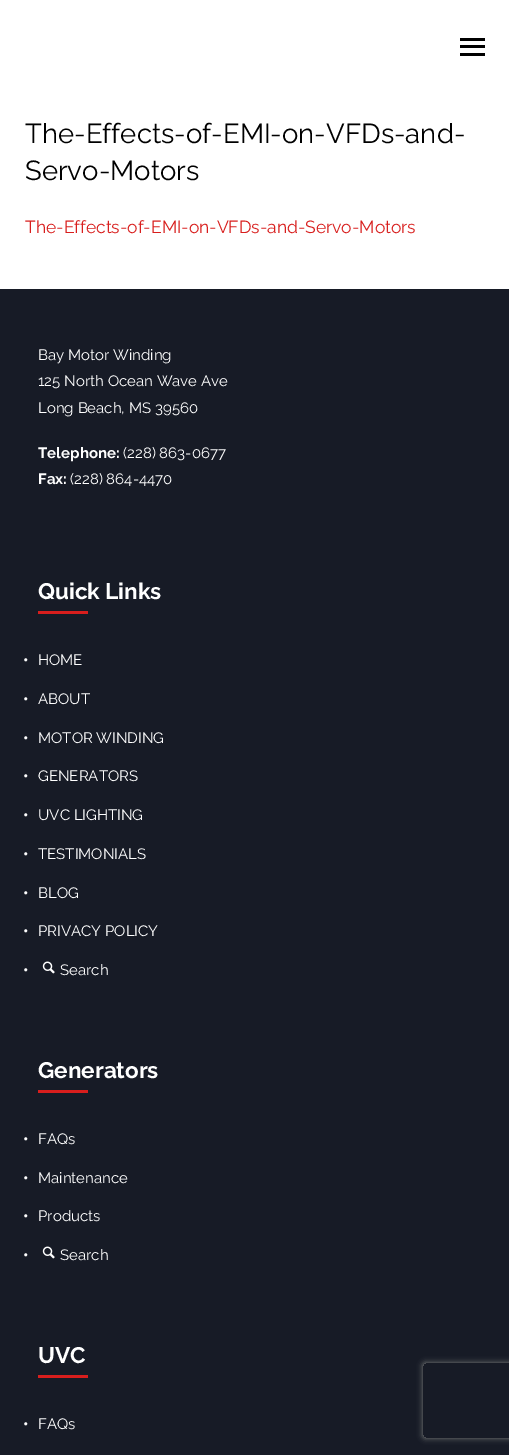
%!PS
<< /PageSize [509 1455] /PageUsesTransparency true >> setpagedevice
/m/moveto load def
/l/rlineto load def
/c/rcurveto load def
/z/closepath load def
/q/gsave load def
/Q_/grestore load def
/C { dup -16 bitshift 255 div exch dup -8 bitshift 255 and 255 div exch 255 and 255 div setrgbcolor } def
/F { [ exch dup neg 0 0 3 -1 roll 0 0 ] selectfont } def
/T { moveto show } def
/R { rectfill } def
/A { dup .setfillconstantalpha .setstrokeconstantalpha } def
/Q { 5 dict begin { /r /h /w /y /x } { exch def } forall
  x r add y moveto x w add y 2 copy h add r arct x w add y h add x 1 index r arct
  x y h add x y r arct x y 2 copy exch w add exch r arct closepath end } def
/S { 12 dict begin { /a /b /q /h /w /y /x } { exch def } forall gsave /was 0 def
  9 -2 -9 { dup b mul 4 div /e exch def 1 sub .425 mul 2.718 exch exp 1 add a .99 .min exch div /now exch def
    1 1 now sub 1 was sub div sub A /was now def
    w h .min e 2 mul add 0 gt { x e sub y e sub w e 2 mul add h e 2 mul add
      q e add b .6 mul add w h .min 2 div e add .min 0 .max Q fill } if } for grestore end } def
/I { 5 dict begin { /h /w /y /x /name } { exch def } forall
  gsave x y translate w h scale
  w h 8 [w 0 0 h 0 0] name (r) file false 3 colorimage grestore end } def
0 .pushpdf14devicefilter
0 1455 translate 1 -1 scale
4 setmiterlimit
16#FFFFFF C
0 0 509 1455 R
16#000000 C
460 38 25 3 R
460 45 25 3 R
460 53 25 3 R
/Raleway-Regular 27.5 F
(The-Effects-of-EMI-on-VFDs-and-) 25 143 T
(Servo-Motors) 25 180 T
/Raleway-Regular 17.5 F
16#D81E1D C
(The-Effects-of-EMI-on-VFDs-and-Servo-Motors) 25 233 T
16#171B26 C
0 289 509 1166 R
/Raleway-Regular 15 F
16#FFFFFF C
(Bay Motor Winding) 38 360 T
(125 North Ocean Wave Ave) 38 386 T
(Long Beach, MS 39560) 38 413 T
/Raleway-Bold 15 F
(Telephone:) 38 458 T
/Raleway-Regular 15 F
(\(228\) 863-0677) 123 458 T
/Raleway-Bold 15 F
(Fax:) 38 484 T
/Raleway-Regular 15 F
(\(228\) 864-4470) 70 484 T
/Raleway-Bold 22.5 F
(Quick Links) 38 599 T
16#D81E1D C
38 611 50 3 R
/Raleway-Bold 15 F
16#FFFFFF C
(•) 23 665 T
/Raleway-Regular 15 F
(HOME) 38 665 T
/Raleway-Bold 15 F
(•) 23 704 T
/Raleway-Regular 15 F
(ABOUT) 38 704 T
/Raleway-Bold 15 F
(•) 23 743 T
/Raleway-Regular 15 F
(MOTOR WINDING) 38 743 T
/Raleway-Bold 15 F
(•) 23 781 T
/Raleway-Regular 15 F
(GENERATORS) 38 781 T
/Raleway-Bold 15 F
(•) 23 820 T
/Raleway-Regular 15 F
(UVC LIGHTING) 38 820 T
/Raleway-Bold 15 F
(•) 23 859 T
/Raleway-Regular 15 F
(TESTIMONIALS) 38 859 T
/Raleway-Bold 15 F
(•) 23 898 T
/Raleway-Regular 15 F
(BLOG) 38 898 T
/Raleway-Bold 15 F
(•) 23 936 T
/Raleway-Regular 15 F
(PRIVACY POLICY) 38 936 T
/Raleway-Bold 15 F
(•) 23 975 T
(1.rgb) 42 961 13 13 I
/Raleway-Regular 15 F
(Search) 60 975 T
/Raleway-Bold 22.5 F
(Generators) 38 1078 T
16#D81E1D C
38 1090 50 3 R
/Raleway-Bold 15 F
16#FFFFFF C
(•) 23 1144 T
/Raleway-Regular 15 F
(FAQs) 38 1144 T
/Raleway-Bold 15 F
(•) 23 1183 T
/Raleway-Regular 15 F
(Maintenance) 38 1183 T
/Raleway-Bold 15 F
(•) 23 1221 T
/Raleway-Regular 15 F
(Products) 38 1221 T
/Raleway-Bold 15 F
(•) 23 1260 T
(1.rgb) 42 1246 13 13 I
/Raleway-Regular 15 F
(Search) 60 1260 T
/Raleway-Bold 22.5 F
(UVC) 38 1363 T
16#D81E1D C
38 1375 50 3 R
/Raleway-Bold 15 F
16#FFFFFF C
(•) 23 1429 T
/Raleway-Regular 15 F
(FAQs) 38 1429 T
q
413 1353 m 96 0 l 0 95 l -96 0 l z 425.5 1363 m 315 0 l 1.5 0 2.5 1 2.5 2.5 c 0 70 l 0 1.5 -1 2.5 -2.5 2.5 c -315 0 l -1.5 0 -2.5 -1 -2.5 -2.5 c 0 -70 l 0 -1.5 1 -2.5 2.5 -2.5 c z eoclip newpath
16#808080 C
423 1363 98 75 2.5 3 1 S
Q_
.poppdf14devicefilter showpage
